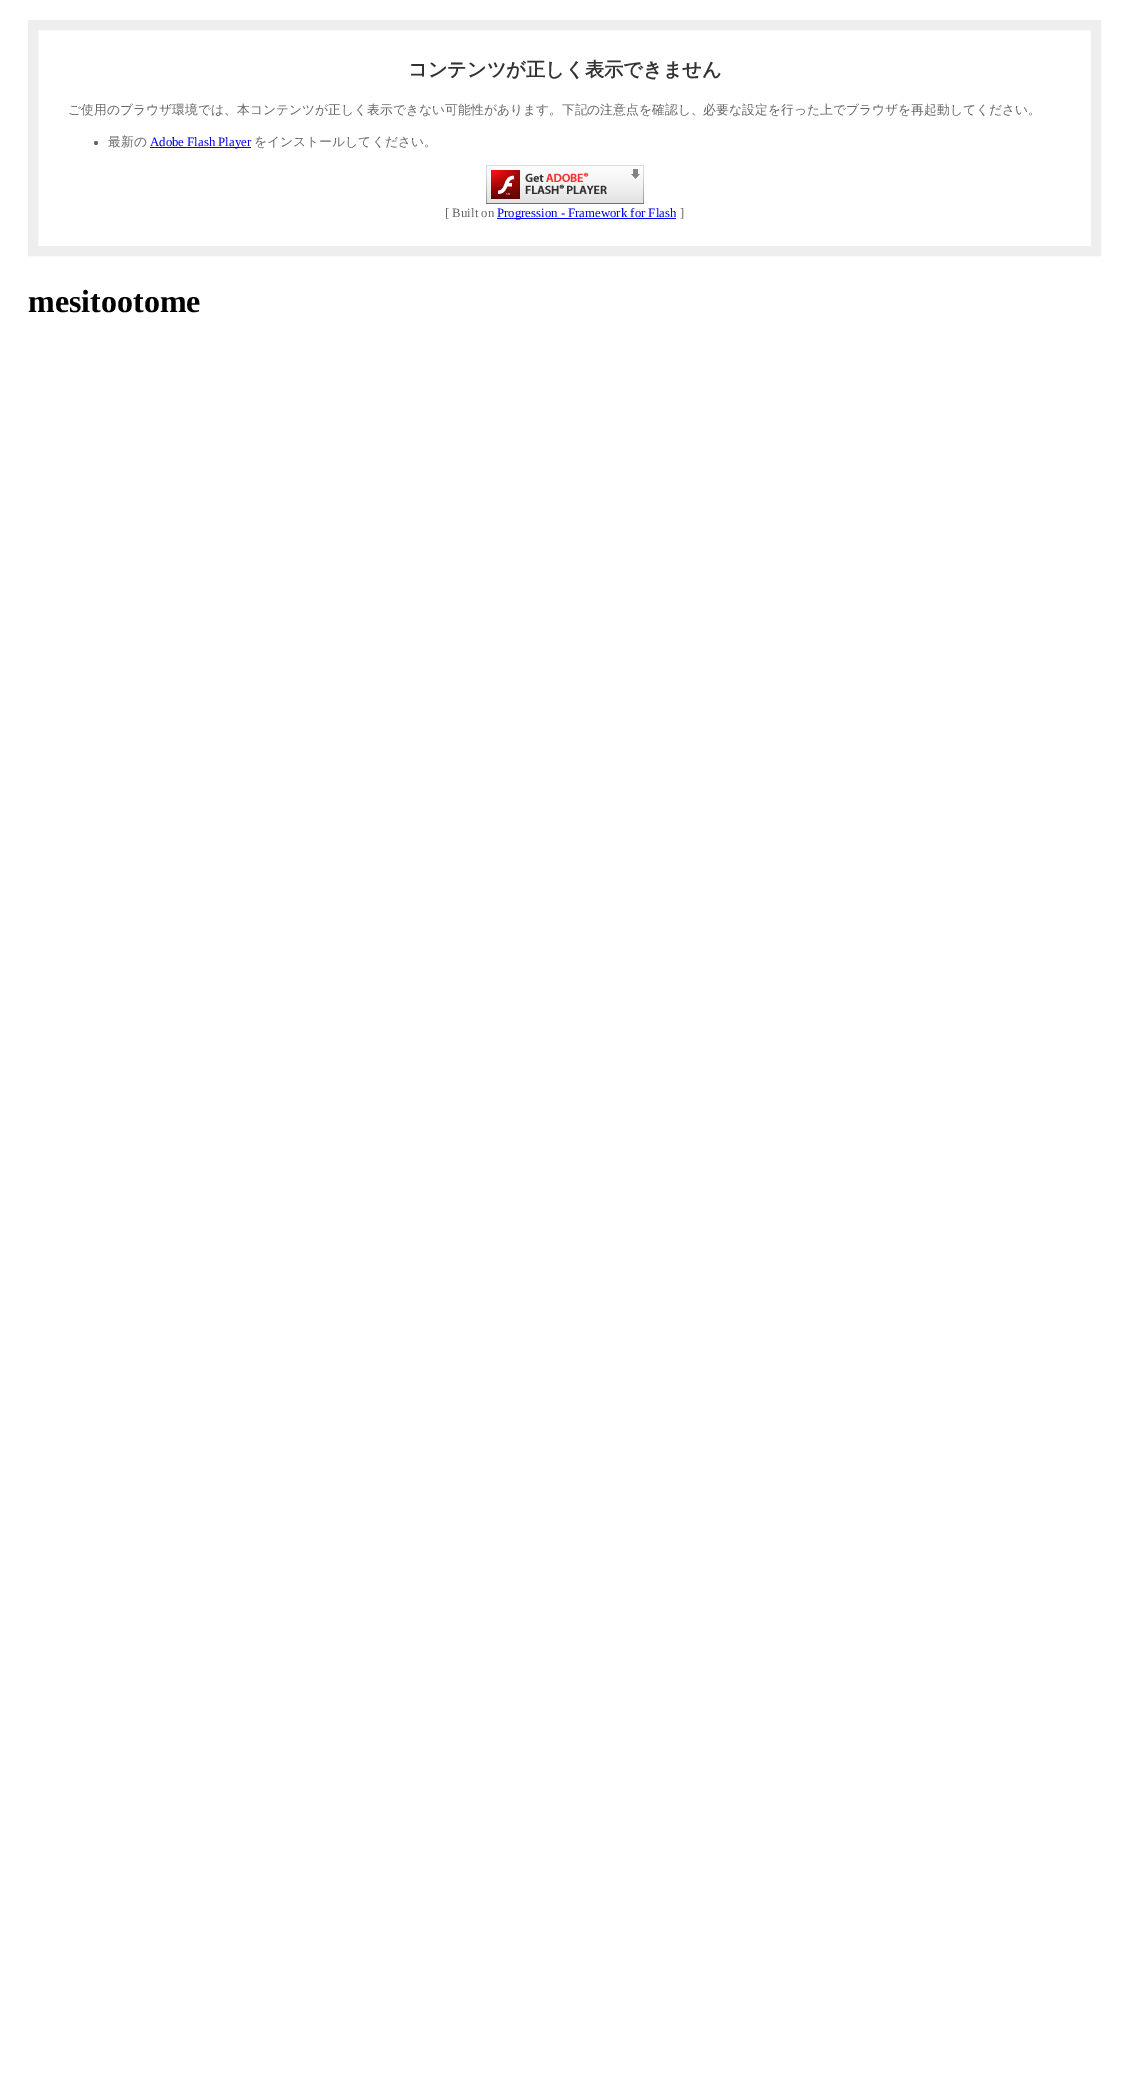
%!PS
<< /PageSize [1129 2087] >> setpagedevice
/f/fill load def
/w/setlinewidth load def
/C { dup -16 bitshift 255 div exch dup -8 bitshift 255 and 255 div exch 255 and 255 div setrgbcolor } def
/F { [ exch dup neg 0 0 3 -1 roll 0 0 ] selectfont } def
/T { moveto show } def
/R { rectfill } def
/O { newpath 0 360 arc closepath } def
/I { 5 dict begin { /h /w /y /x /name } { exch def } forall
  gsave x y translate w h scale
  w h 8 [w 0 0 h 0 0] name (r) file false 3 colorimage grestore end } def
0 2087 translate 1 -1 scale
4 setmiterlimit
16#FFFFFF C
0 0 1129 2087 R
16#EEEEEE C
10 w
33 25 1063 226 rectstroke
/WenQuanYiZenHei-Bold 19.25 F
16#333333 C
(コンテンツが正しく表示できません) 408 76 T
/WenQuanYiZenHei-Medium 12.8 F
16#666666 C
(ご使用のブラウザ環境では、本コンテンツが正しく表示できない可能性があります。下記の注意点を確認し、必要な設定を行った上でブラウザを再起動してください。) 68 114 T
96 143 2 O f
(最新の) 108 146 T
16#0000EE C
150 147 101 1 R
/LiberationSerif-Regular 12.8 F
(Adobe Flash Player) 150 146 T
/WenQuanYiZenHei-Medium 12.8 F
16#666666 C
(をインストールしてください。) 254 146 T
(1.rgb) 486 165 158 39 I
/LiberationSerif-Regular 12.8 F
([ Built on) 445 217 T
16#0000EE C
497 218 179 1 R
(Progression - Framework for Flash) 497 217 T
16#666666 C
(]) 680 217 T
/LiberationSerif-Bold 32 F
16#000000 C
(mesitootome) 28 312 T
showpage
